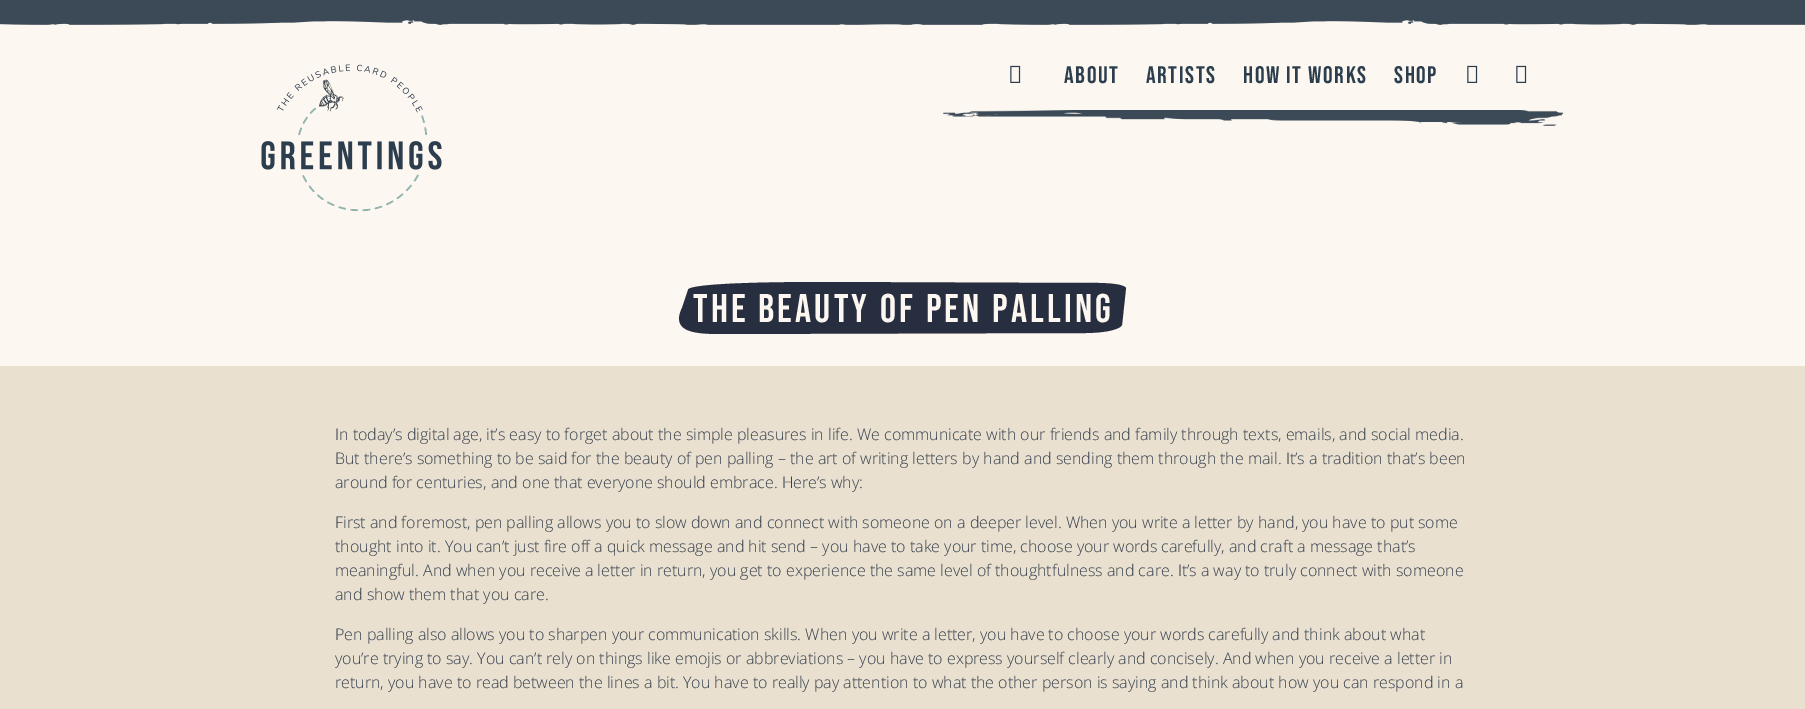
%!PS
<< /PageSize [1805 709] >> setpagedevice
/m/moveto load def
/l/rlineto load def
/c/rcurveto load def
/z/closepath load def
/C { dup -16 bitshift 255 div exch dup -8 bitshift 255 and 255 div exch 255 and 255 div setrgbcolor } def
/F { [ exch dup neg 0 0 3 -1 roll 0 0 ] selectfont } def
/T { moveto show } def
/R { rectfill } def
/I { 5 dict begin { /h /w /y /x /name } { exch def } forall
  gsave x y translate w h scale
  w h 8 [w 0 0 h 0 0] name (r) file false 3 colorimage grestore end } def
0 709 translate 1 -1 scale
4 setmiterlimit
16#FCF7F1 C
0 0 1805 709 R
(1.rgb) 0 0 1805 25 I
(2.rgb) 261 64 181 147 I
(3.rgb) 943 110 620 16 I
(4.rgb) 1010 65 11 18 I
/BebasNeue-Regular 24 F
16#2C3E4E C
1064 83 m 1.6 0 (ABOUT) ashow
1146 83 m 1.6 0 (ARTISTS) ashow
1243 83 m 1.6 0 (HOW IT WORKS) ashow
1394 83 m 1.6 0 (SHOP) ashow
(4.rgb) 1467 65 11 18 I
(4.rgb) 1516 65 11 18 I
16#272E3F C
1074 333 m -351 1 l -26 0 -53 -1 -41 -26 c 6 -18 l 0 -2 7 -8 139 -8 c 256 1 l 7 0 39 -1 43 5 c -4 37 l 0 0 -3 9 -48 8 c z eofill
/BebasNeue-Regular 40 F
16#FCF7F1 C
693 322 m 3.2 0 (THE BEAUTY OF PEN PALLING) ashow
16#EAE0D0 C
0 366 1805 343 R
/OpenSans-Light 16 F
16#35404E C
(In today’s digital age, it’s easy to forget about the simple pleasures in life. We communicate with our friends and family through texts, emails, and social media.) 335 440 T
(But there’s something to be said for the beauty of pen palling – the art of writing letters by hand and sending them through the mail. It’s a tradition that’s been) 335 464 T
(around for centuries, and one that everyone should embrace. Here’s why:) 335 488 T
(First and foremost, pen palling allows you to slow down and connect with someone on a deeper level. When you write a letter by hand, you have to put some) 335 528 T
(thought into it. You can’t just fire off a quick message and hit send – you have to take your time, choose your words carefully, and craft a message that’s) 335 552 T
(meaningful. And when you receive a letter in return, you get to experience the same level of thoughtfulness and care. It’s a way to truly connect with someone) 335 576 T
(and show them that you care.) 335 600 T
(Pen palling also allows you to sharpen your communication skills. When you write a letter, you have to choose your words carefully and think about what) 335 640 T
(you’re trying to say. You can’t rely on things like emojis or abbreviations – you have to express yourself clearly and concisely. And when you receive a letter in) 335 664 T
(return, you have to read between the lines a bit. You have to really pay attention to what the other person is saying and think about how you can respond in a) 335 688 T
showpage
